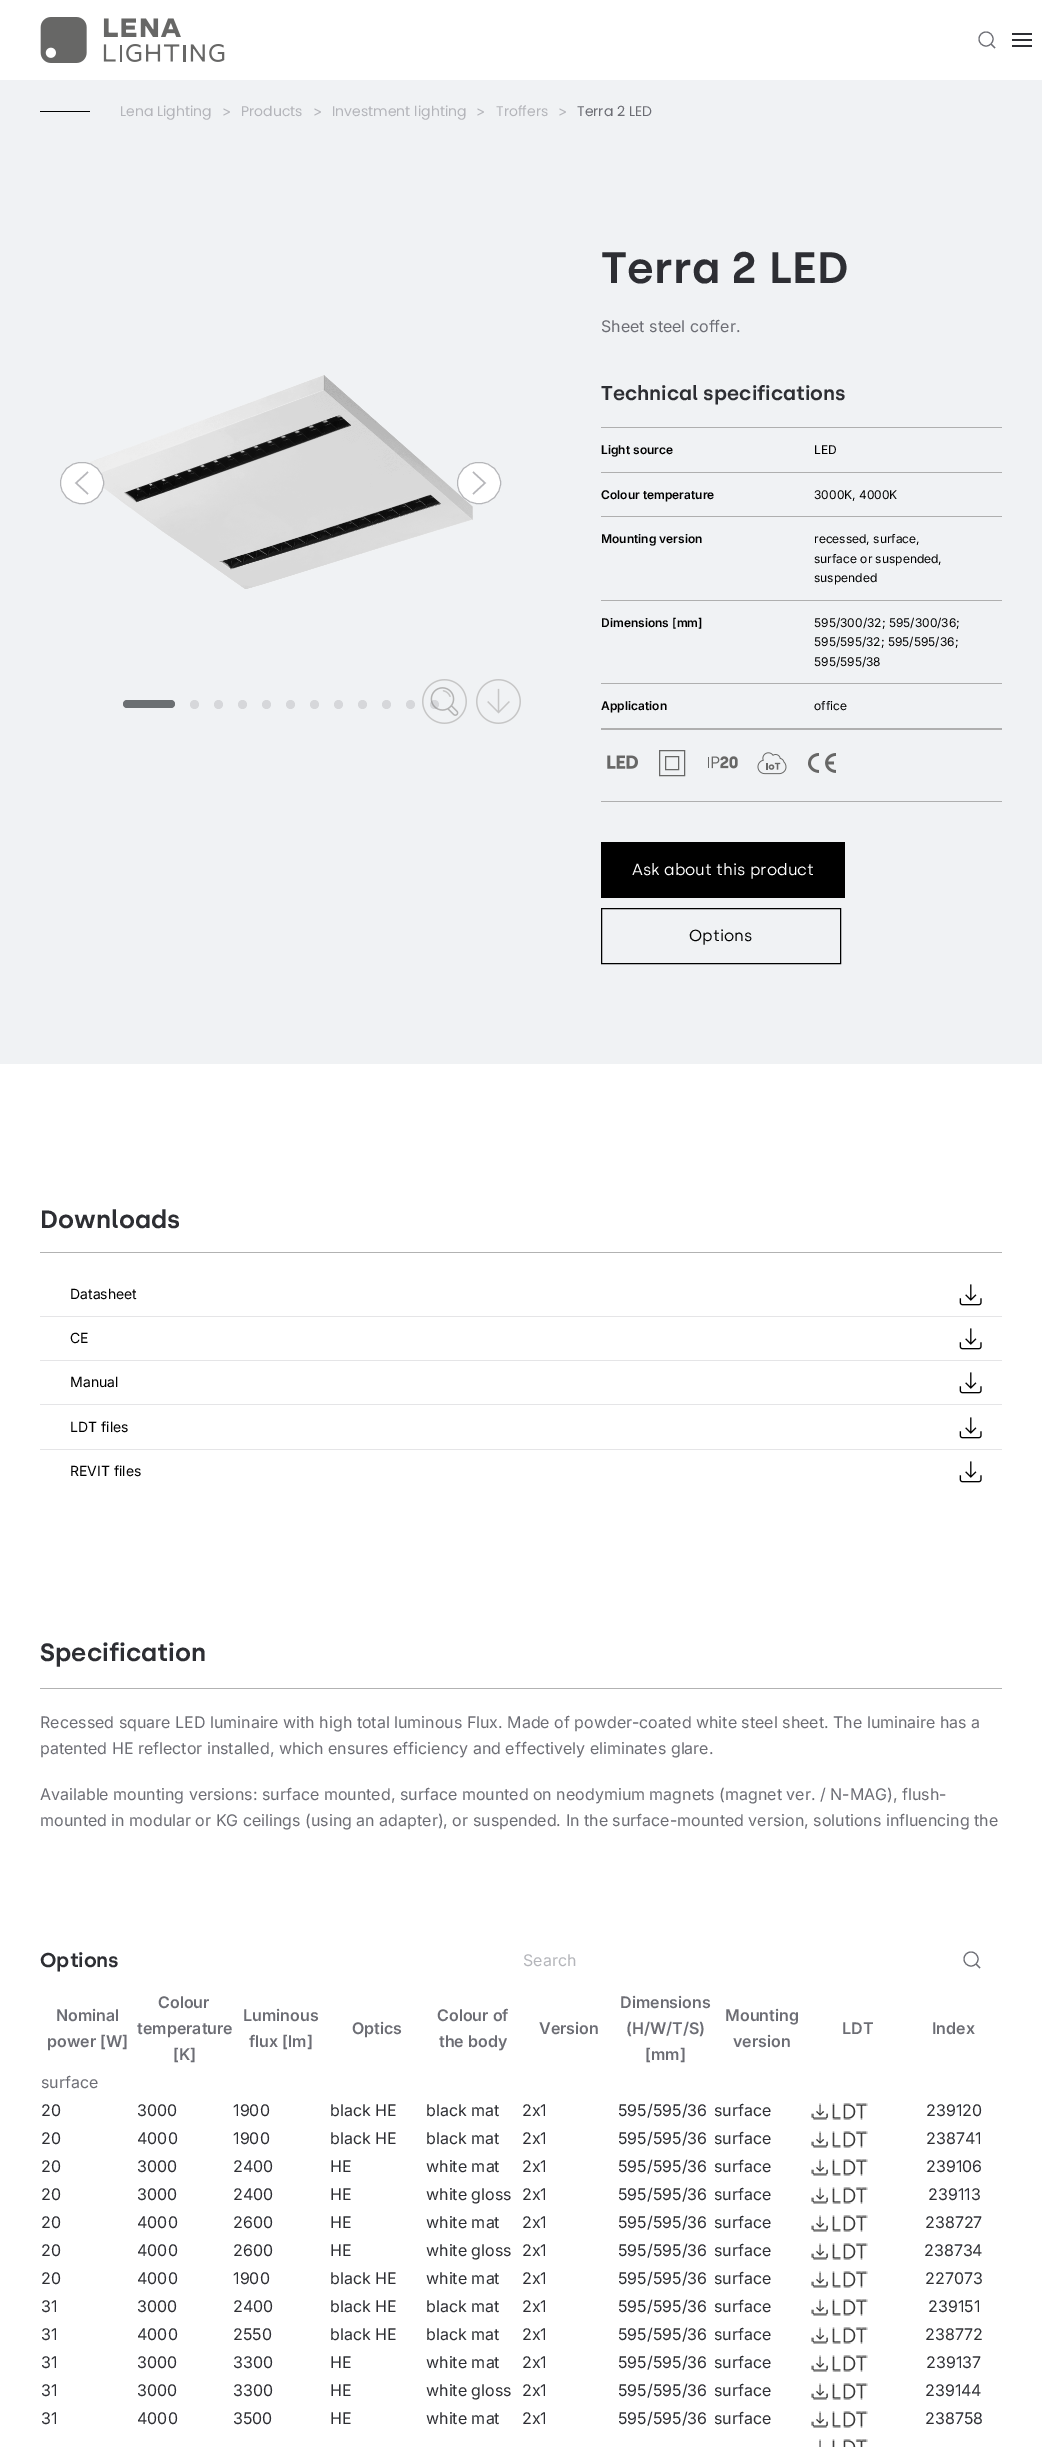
%!PS
<< /PageSize [1042 2447] /PageUsesTransparency true >> setpagedevice
/m/moveto load def
/l/rlineto load def
/z/closepath load def
/f/fill load def
/s/stroke load def
/w/setlinewidth load def
/C { dup -16 bitshift 255 div exch dup -8 bitshift 255 and 255 div exch 255 and 255 div setrgbcolor } def
/F { [ exch dup neg 0 0 3 -1 roll 0 0 ] selectfont } def
/T { moveto show } def
/R { rectfill } def
/A { dup .setfillconstantalpha .setstrokeconstantalpha } def
/O { newpath 0 360 arc closepath } def
/Q { 5 dict begin { /r /h /w /y /x } { exch def } forall
  x r add y moveto x w add y 2 copy h add r arct x w add y h add x 1 index r arct
  x y h add x y r arct x y 2 copy exch w add exch r arct closepath end } def
/I { 5 dict begin { /h /w /y /x /name } { exch def } forall
  gsave x y translate w h scale
  w h 8 [w 0 0 h 0 0] name (r) file false 3 colorimage grestore end } def
0 .pushpdf14devicefilter
0 2447 translate 1 -1 scale
4 setmiterlimit
16#FFFFFF C
0 0 1042 2447 R
(1.rgb) 40 17 185 46 I
16#6C6D74 C
1.1 w
986 39 7 O s
991 44 m 4 4 l z s
16#2D2E33 C
1012 33 20 2 R
1012 39 20 2 R
1012 45 20 2 R
16#F0F2F4 C
0 80 1042 984 R
16#000000 C
40 111 50 1 R
/Poppins-Regular 14 F
16#B4B5BA C
(Lena Lighting) 120 116 T
/Inter-Regular 14 F
(>) 222 116 T
/Poppins-Regular 14 F
(Products) 241 116 T
/Inter-Regular 14 F
(>) 313 116 T
/Poppins-Regular 14 F
(Investment lighting) 332 116 T
/Inter-Regular 14 F
(>) 476 116 T
/Poppins-Regular 14 F
(Troffers) 496 116 T
/Inter-Regular 14 F
(>) 558 116 T
/Poppins-Regular 14 F
16#6C6D74 C
(Terra 2 LED) 577 116 T
(2.rgb) 89 375 384 214 I
(3.rgb) 422 679 45 45 I
(4.rgb) 476 679 45 45 I
16#FFFFFF C
60 462 44 42 21 Q f
0.5 A
16#6C6D74 C
1 w
60.5 462.5 43 41 20.5 Q s
1 A
16#B6B6BA C
1.4 w
88 472 m -12 11 l 12 11 l s
16#FFFFFF C
457 462 44 42 21 Q f
0.5 A
16#6C6D74 C
1 w
457.5 462.5 43 41 20.5 Q s
1 A
16#B6B6BA C
1.4 w
473 494 m 12 -11 l -12 -11 l s
16#6B6F72 C
123 700 52 8 4 Q f
16#D6D7DA C
194.5 704.5 4.5 O f
218.5 704.5 4.5 O f
242.5 704.5 4.5 O f
266.5 704.5 4.5 O f
290.5 704.5 4.5 O f
314.5 704.5 4.5 O f
338.5 704.5 4.5 O f
362.5 704.5 4.5 O f
386.5 704.5 4.5 O f
410.5 704.5 4.5 O f
0.2 A
16#6C6D74 C
434.5 704.5 4.5 O f
/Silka-SemiBold 44 F
1 A
16#2D2E33 C
(Terra 2 LED) 601 283 T
/Inter-Regular 16 F
16#6C6D74 C
(Sheet steel coffer.) 601 332 T
/Silka-SemiBold 20 F
16#2D2E33 C
(Technical specifications) 601 400 T
16#AFAFAF C
601 427 401 1 R
601 472 401 1 R
/Inter-SemiBold 12 F
16#000000 C
(Light source) 601 454 T
/Inter-Regular 12 F
(LED) 814 454 T
16#AFAFAF C
601 516 401 1 R
/Inter-SemiBold 12 F
16#000000 C
(Colour temperature) 601 499 T
/Inter-Regular 12 F
(3000K, 4000K) 814 499 T
16#AFAFAF C
601 600 401 1 R
/Inter-SemiBold 12 F
16#000000 C
(Mounting version) 601 543 T
/Inter-Regular 12 F
(recessed, surface,) 814 543 T
(surface or suspended,) 814 563 T
(suspended) 814 582 T
16#AFAFAF C
601 683 401 1 R
/Inter-SemiBold 12 F
16#000000 C
(Dimensions [mm]) 601 627 T
/Inter-Regular 12 F
(595/300/32; 595/300/36;) 814 627 T
(595/595/32; 595/595/36;) 814 646 T
(595/595/38) 814 666 T
16#AFAFAF C
601 728 401 2 R
/Inter-SemiBold 12 F
16#000000 C
(Application) 601 710 T
/Inter-Regular 12 F
(office) 814 710 T
16#AFAFAF C
601 801 401 1 R
(5.rgb) 607 755 31 14 I
16#676766 C
1 w
659.5 750.5 25 25 rectstroke
665.5 756.5 13 13 rectstroke
(6.rgb) 708 756 30 13 I
(7.rgb) 757 752 30 23 I
(8.rgb) 808 753 28 20 I
16#000000 C
601 842 244 56 R
/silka-Regular 16 F
16#FFFFFF C
(Ask about this product) 632 875 T
16#000000 C
601.5 908.5 239 55 rectstroke
(Options) 689 941 T
/Silka-SemiBold 25 F
16#2D2E33 C
(Downloads) 40 1228 T
16#B2B2B2 C
40 1252 962 1 R
/Inter-Regular 14 F
16#000000 C
(Datasheet) 70 1299 T
(9.rgb) 959 1284 23 22 I
16#E5E5E7 C
40 1316 962 1 R
16#000000 C
(CE) 70 1343 T
(9.rgb) 959 1328 23 22 I
16#E5E5E7 C
40 1360 962 1 R
16#000000 C
(Manual) 70 1387 T
(9.rgb) 959 1372 23 22 I
16#E5E5E7 C
40 1404 962 1 R
16#000000 C
(LDT files) 70 1432 T
(9.rgb) 959 1417 23 22 I
16#E5E5E7 C
40 1449 962 1 R
16#000000 C
(REVIT files) 70 1476 T
(9.rgb) 959 1461 23 22 I
/Silka-SemiBold 25 F
16#2D2E33 C
(Specification) 40 1661 T
16#B2B2B2 C
40 1688 962 1 R
/Inter-Regular 16 F
16#6C6D74 C
(Recessed square LED luminaire with high total luminous Flux. Made of powder-coated white steel sheet. The luminaire has a) 40 1728 T
(patented HE reflector installed, which ensures efficiency and effectively eliminates glare.) 40 1754 T
(Available mounting versions: surface mounted, surface mounted on neodymium magnets \(magnet ver. / N-MAG\), flush-) 40 1800 T
(mounted in modular or KG ceilings \(using an adapter\), or suspended. In the surface-mounted version, solutions influencing the) 40 1826 T
/Silka-SemiBold 20 F
16#2D2E33 C
(Options) 40 1967 T
/Inter-Regular 16 F
16#B4B5BA C
(Search) 523 1966 T
16#6C6D74 C
1.1 w
971 1959 7 O s
976 1964 m 4 4 l z s
/Inter-SemiBold 16 F
(Nominal) 56 2021 T
(power [W]) 47 2047 T
(Colour) 158 2008 T
(temperature) 137 2034 T
([K]) 173 2060 T
(Luminous) 243 2021 T
(flux [lm]) 249 2047 T
(Optics) 352 2034 T
(Colour of) 437 2021 T
(the body) 439 2047 T
(Version) 539 2034 T
(Dimensions) 620 2008 T
(\(H/W/T/S\)) 626 2034 T
([mm]) 645 2060 T
(Mounting) 725 2021 T
(version) 733 2047 T
(LDT) 842 2034 T
(Index) 932 2034 T
/Inter-Regular 16 F
(surface) 41 2088 T
16#2D2E33 C
(20) 41 2116 T
(3000) 137 2116 T
(1900) 233 2116 T
(black HE) 330 2116 T
(black mat) 426 2116 T
(2x1) 522 2116 T
(595/595/36) 618 2116 T
(surface) 714 2116 T
(10.rgb) 811 2103 57 17 I
(239120) 926 2116 T
(20) 41 2144 T
(4000) 137 2144 T
(1900) 233 2144 T
(black HE) 330 2144 T
(black mat) 426 2144 T
(2x1) 522 2144 T
(595/595/36) 618 2144 T
(surface) 714 2144 T
(10.rgb) 811 2131 57 17 I
(238741) 926 2144 T
(20) 41 2172 T
(3000) 137 2172 T
(2400) 233 2172 T
(HE) 330 2172 T
(white mat) 426 2172 T
(2x1) 522 2172 T
(595/595/36) 618 2172 T
(surface) 714 2172 T
(10.rgb) 811 2159 57 17 I
(239106) 926 2172 T
(20) 41 2200 T
(3000) 137 2200 T
(2400) 233 2200 T
(HE) 330 2200 T
(white gloss) 426 2200 T
(2x1) 522 2200 T
(595/595/36) 618 2200 T
(surface) 714 2200 T
(10.rgb) 811 2187 57 17 I
(239113) 928 2200 T
(20) 41 2228 T
(4000) 137 2228 T
(2600) 233 2228 T
(HE) 330 2228 T
(white mat) 426 2228 T
(2x1) 522 2228 T
(595/595/36) 618 2228 T
(surface) 714 2228 T
(10.rgb) 811 2215 57 17 I
(238727) 925 2228 T
(20) 41 2256 T
(4000) 137 2256 T
(2600) 233 2256 T
(HE) 330 2256 T
(white gloss) 426 2256 T
(2x1) 522 2256 T
(595/595/36) 618 2256 T
(surface) 714 2256 T
(10.rgb) 811 2243 57 17 I
(238734) 924 2256 T
(20) 41 2284 T
(4000) 137 2284 T
(1900) 233 2284 T
(black HE) 330 2284 T
(white mat) 426 2284 T
(2x1) 522 2284 T
(595/595/36) 618 2284 T
(surface) 714 2284 T
(10.rgb) 811 2271 57 17 I
(227073) 925 2284 T
(31) 41 2312 T
(3000) 137 2312 T
(2400) 233 2312 T
(black HE) 330 2312 T
(black mat) 426 2312 T
(2x1) 522 2312 T
(595/595/36) 618 2312 T
(surface) 714 2312 T
(10.rgb) 811 2299 57 17 I
(239151) 928 2312 T
(31) 41 2340 T
(4000) 137 2340 T
(2550) 233 2340 T
(black HE) 330 2340 T
(black mat) 426 2340 T
(2x1) 522 2340 T
(595/595/36) 618 2340 T
(surface) 714 2340 T
(10.rgb) 811 2327 57 17 I
(238772) 925 2340 T
(31) 41 2368 T
(3000) 137 2368 T
(3300) 233 2368 T
(HE) 330 2368 T
(white mat) 426 2368 T
(2x1) 522 2368 T
(595/595/36) 618 2368 T
(surface) 714 2368 T
(10.rgb) 811 2355 57 17 I
(239137) 926 2368 T
(31) 41 2396 T
(3000) 137 2396 T
(3300) 233 2396 T
(HE) 330 2396 T
(white gloss) 426 2396 T
(2x1) 522 2396 T
(595/595/36) 618 2396 T
(surface) 714 2396 T
(10.rgb) 811 2383 57 17 I
(239144) 925 2396 T
(31) 41 2424 T
(4000) 137 2424 T
(3500) 233 2424 T
(HE) 330 2424 T
(white mat) 426 2424 T
(2x1) 522 2424 T
(595/595/36) 618 2424 T
(surface) 714 2424 T
(10.rgb) 811 2411 57 17 I
(238758) 925 2424 T
(11.rgb) 819 2439 49 8 I
.poppdf14devicefilter showpage
